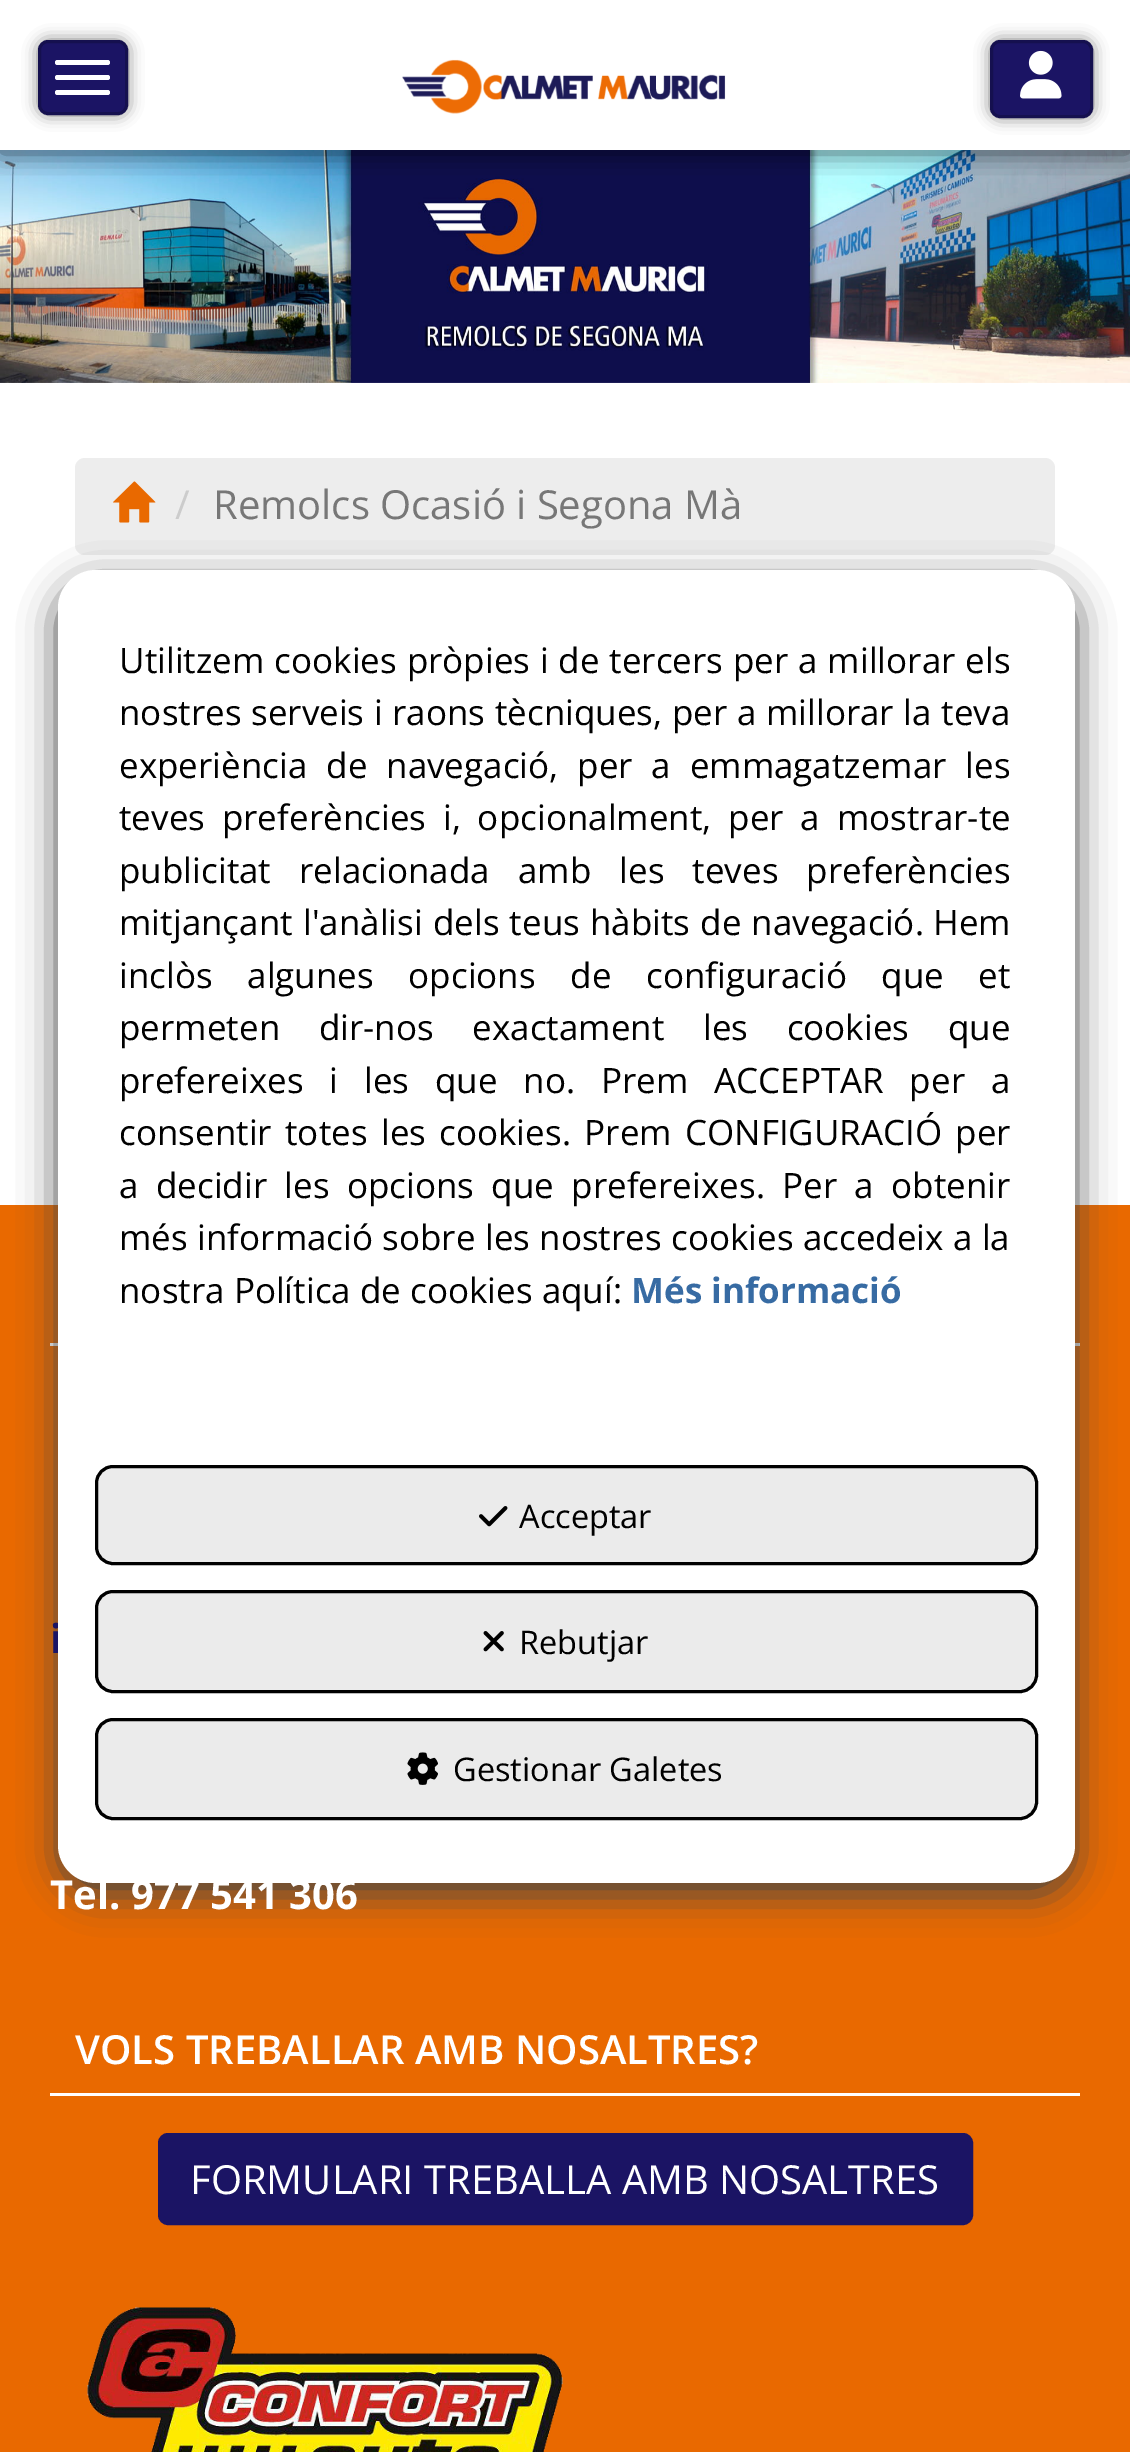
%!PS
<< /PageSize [1130 2452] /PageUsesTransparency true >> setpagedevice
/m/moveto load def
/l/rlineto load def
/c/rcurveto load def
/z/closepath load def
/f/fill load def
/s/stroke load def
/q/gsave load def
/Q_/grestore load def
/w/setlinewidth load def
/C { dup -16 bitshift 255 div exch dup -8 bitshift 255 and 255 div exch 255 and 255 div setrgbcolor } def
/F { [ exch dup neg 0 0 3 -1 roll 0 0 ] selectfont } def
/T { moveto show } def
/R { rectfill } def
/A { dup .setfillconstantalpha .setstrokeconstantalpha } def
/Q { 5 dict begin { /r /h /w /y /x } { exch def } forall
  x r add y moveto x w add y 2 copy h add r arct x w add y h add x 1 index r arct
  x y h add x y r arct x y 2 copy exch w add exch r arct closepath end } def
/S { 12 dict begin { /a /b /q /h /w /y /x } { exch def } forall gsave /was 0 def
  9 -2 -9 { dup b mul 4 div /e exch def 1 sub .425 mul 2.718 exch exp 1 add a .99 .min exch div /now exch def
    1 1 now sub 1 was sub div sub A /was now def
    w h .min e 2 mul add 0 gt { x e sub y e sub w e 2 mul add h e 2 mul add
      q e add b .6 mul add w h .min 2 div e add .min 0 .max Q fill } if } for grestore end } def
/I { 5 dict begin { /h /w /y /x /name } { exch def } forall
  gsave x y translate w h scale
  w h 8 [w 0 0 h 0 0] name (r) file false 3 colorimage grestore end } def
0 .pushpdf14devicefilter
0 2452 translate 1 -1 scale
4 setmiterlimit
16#FFFFFF C
0 0 1130 2452 R
(3.rgb) 0 150 1130 233 I
q
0 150 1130 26 rectclip
16#000000 C
0 3 1130 150 0 12.5 .6 S
Q_
16#000000 C
38 40 90 75 10 7.5 .5 S
16#1B1464 C
39.5 41.5 87 72 8.5 Q q f Q_
16#15104F C
3 w
s
16#FFFFFF C
55 60 55 5 2.5 Q f
55 75 55 5 2.5 Q f
55 90 55 5 2.5 Q f
(1.rgb) 402 59 324 55 I
16#000000 C
990 40 103 78 10 7.5 .5 S
16#1B1464 C
991.5 41.5 100 75 8.5 Q q f Q_
16#15104F C
s
(2.rgb) 1020 50 42 49 I
16#EDEDED C
75 458 980 97 10 Q f
(4.rgb) 113 481 43 42 I
/OpenSans-Regular 40 F
16#CCCCCC C
(/) 175 519 T
16#777777 C
(Remolcs Ocasió i Segona Mà) 213 519 T
16#E96900 C
0 1205 1130 1247 R
16#FFFFFF C
50 1343 1030 3 R
q
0 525 m 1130 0 l 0 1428 l -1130 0 l z 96 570 m 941 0 l 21 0 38 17 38 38 c 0 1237 l 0 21 -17 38 -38 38 c -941 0 l -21 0 -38 -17 -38 -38 c 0 -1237 l 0 -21 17 -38 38 -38 c z eoclip newpath
16#454545 C
58 583 1017 1312 38 19 1 S
Q_
/OpenSans-Bold 40 F
16#1B1464 C
(i) 50 1653 T
16#FFFFFF C
58 570 1017 1313 38 Q f
/OpenSans-Regular 35 F
16#000000 C
119 673 m .75 0 32 (Utilitzem cookies pròpies i de tercers per a millorar els) widthshow
119 725 m .5 0 32 (nostres serveis i raons tècniques, per a millorar la teva) widthshow
119 778 m 9.75 0 32 (experiència de navegació, per a emmagatzemar les) widthshow
119 830 m 7.75 0 32 (teves preferències i, opcionalment, per a mostrar-te) widthshow
119 883 m 19 0 32 (publicitat relacionada amb les teves preferències) widthshow
119 935 m 1 0 32 (mitjançant l'anàlisi dels teus hàbits de navegació.) widthshow
(Hem) 933 935 T
119 988 m 25.5 0 32 (inclòs algunes opcions de configuració que et) widthshow
119 1040 m 29.5 0 32 (permeten dir-nos exactament les cookies que) widthshow
119 1093 m 16.75 0 32 (prefereixes i les que no. Prem ACCEPTAR per a) widthshow
119 1145 m 4.25 0 32 (consentir totes les cookies. Prem CONFIGURACIÓ per) widthshow
119 1198 m 8.25 0 32 (a decidir les opcions que prefereixes. Per a obtenir) widthshow
119 1250 m .25 0 32 (més informació sobre les nostres cookies accedeix a la) widthshow
(nostra Política de cookies aquí:) 119 1303 T
/OpenSans-Bold 35 F
16#376BA3 C
(Més informació) 631 1303 T
16#EBEBEB C
96.5 1466.5 940 97 16.5 Q q f Q_
16#000000 C
s
(5.rgb) 479 1506 29 21 I
/OpenSans-Regular 32.5 F
(Acceptar) 519 1528 T
16#EBEBEB C
96.5 1591.5 940 100 16.5 Q q f Q_
16#000000 C
s
(6.rgb) 483 1631 21 21 I
(Rebutjar) 519 1654 T
16#EBEBEB C
96.5 1719.5 940 99 16.5 Q q f Q_
16#000000 C
s
(7.rgb) 407 1752 31 33 I
(Gestionar Galetes) 453 1781 T
/OpenSans-Bold 40 F
16#FFFFFF C
(Tel. 977 541 306) 50 1909 T
50 2093 1030 3 R
/OpenSans-SemiBold 40 F
(VOLS TREBALLAR AMB NOSALTRES?) 75 2064 T
16#1B1464 C
159.5 2134.5 812 89 8.5 Q q f Q_
s
/OpenSans-Regular 40 F
16#FFFFFF C
(FORMULARI TREBALLA AMB NOSALTRES) 190 2194 T
(8.rgb) 87 2307 476 145 I
.poppdf14devicefilter showpage
